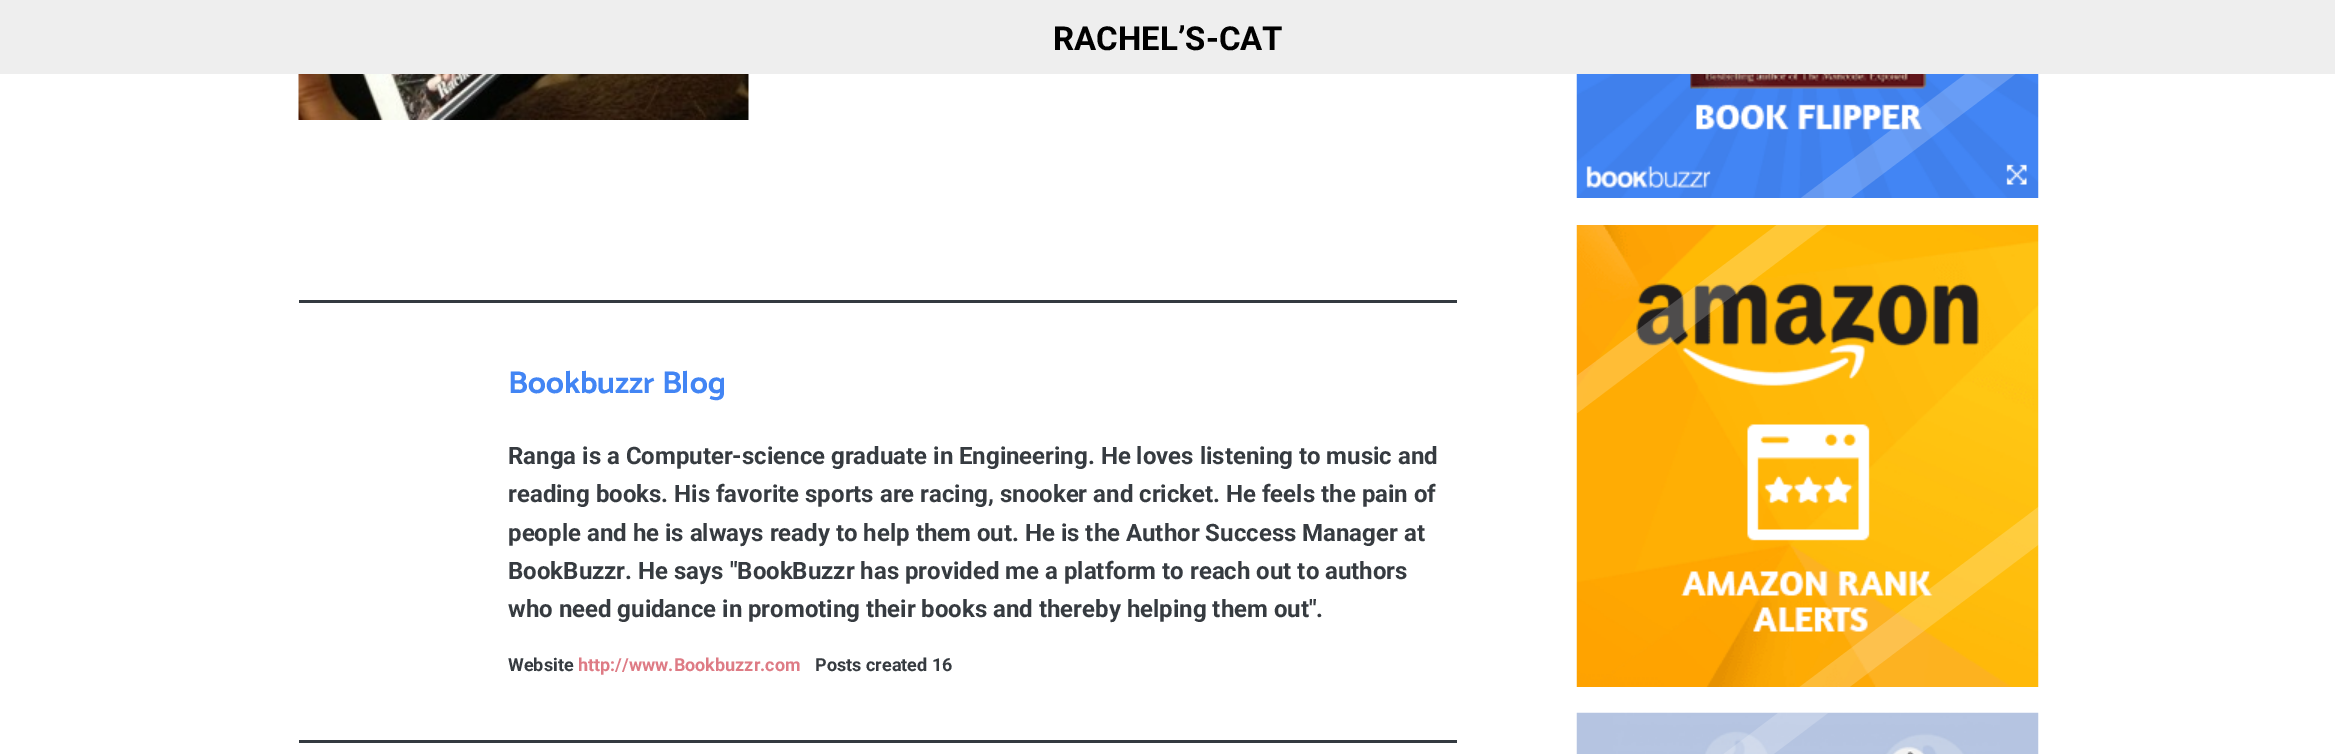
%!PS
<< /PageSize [2335 754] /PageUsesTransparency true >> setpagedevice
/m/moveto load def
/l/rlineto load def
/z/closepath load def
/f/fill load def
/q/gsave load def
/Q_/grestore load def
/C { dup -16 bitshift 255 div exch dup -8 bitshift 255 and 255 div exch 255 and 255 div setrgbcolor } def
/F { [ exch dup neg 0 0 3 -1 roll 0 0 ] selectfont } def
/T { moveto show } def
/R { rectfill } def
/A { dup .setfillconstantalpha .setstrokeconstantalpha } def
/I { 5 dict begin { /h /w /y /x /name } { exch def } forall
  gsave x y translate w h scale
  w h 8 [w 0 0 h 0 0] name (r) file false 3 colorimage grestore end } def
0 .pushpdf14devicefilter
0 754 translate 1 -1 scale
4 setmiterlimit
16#FFFFFF C
0 0 2335 754 R
(2.rgb) 1576 74 463 124 I
q
1577 0 462 210 rectclip
0.2 A
1720 259 m 479 -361 l 18 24 l -479 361 l z f
Q_
16#EEEEEE C
0 0 2335 74 R
/Roboto-Bold 33 F
16#000000 C
(RACHEL’S-CAT) 1053 50 T
(1.rgb) 298 74 451 46 I
16#343A40 C
299 300 1158 3 R
299 740 1158 3 R
/Catamaran-Bold 31.5 F
16#4285F4 C
(Bookbuzzr Blog) 508 393 T
/Roboto-Bold 24 F
16#363B40 C
(Ranga is a Computer-science graduate in Engineering. He loves listening to music and) 508 464 T
(reading books. His favorite sports are racing, snooker and cricket. He feels the pain of) 508 502 T
(people and he is always ready to help them out. He is the Author Success Manager at) 508 541 T
(BookBuzzr. He says "BookBuzzr has provided me a platform to reach out to authors) 508 579 T
(who need guidance in promoting their books and thereby helping them out".) 508 617 T
/Roboto-Bold 18 F
(Website) 508 671 T
16#DE7B85 C
(http://www.Bookbuzzr.com) 578 671 T
16#363B40 C
(Posts created 16) 815 671 T
(3.rgb) 1576 225 463 462 I
q
1577 225 462 473 rectclip
0.2 A
16#FFFFFF C
1396 512 m 479 -361 l 18 24 l -479 361 l z f
1720 747 m 479 -361 l 18 24 l -479 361 l z f
Q_
(4.rgb) 1576 712 463 42 I
q
1577 713 462 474 rectclip
0.2 A
16#FFFFFF C
1396 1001 m 479 -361 l 18 24 l -479 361 l z f
Q_
.poppdf14devicefilter showpage
